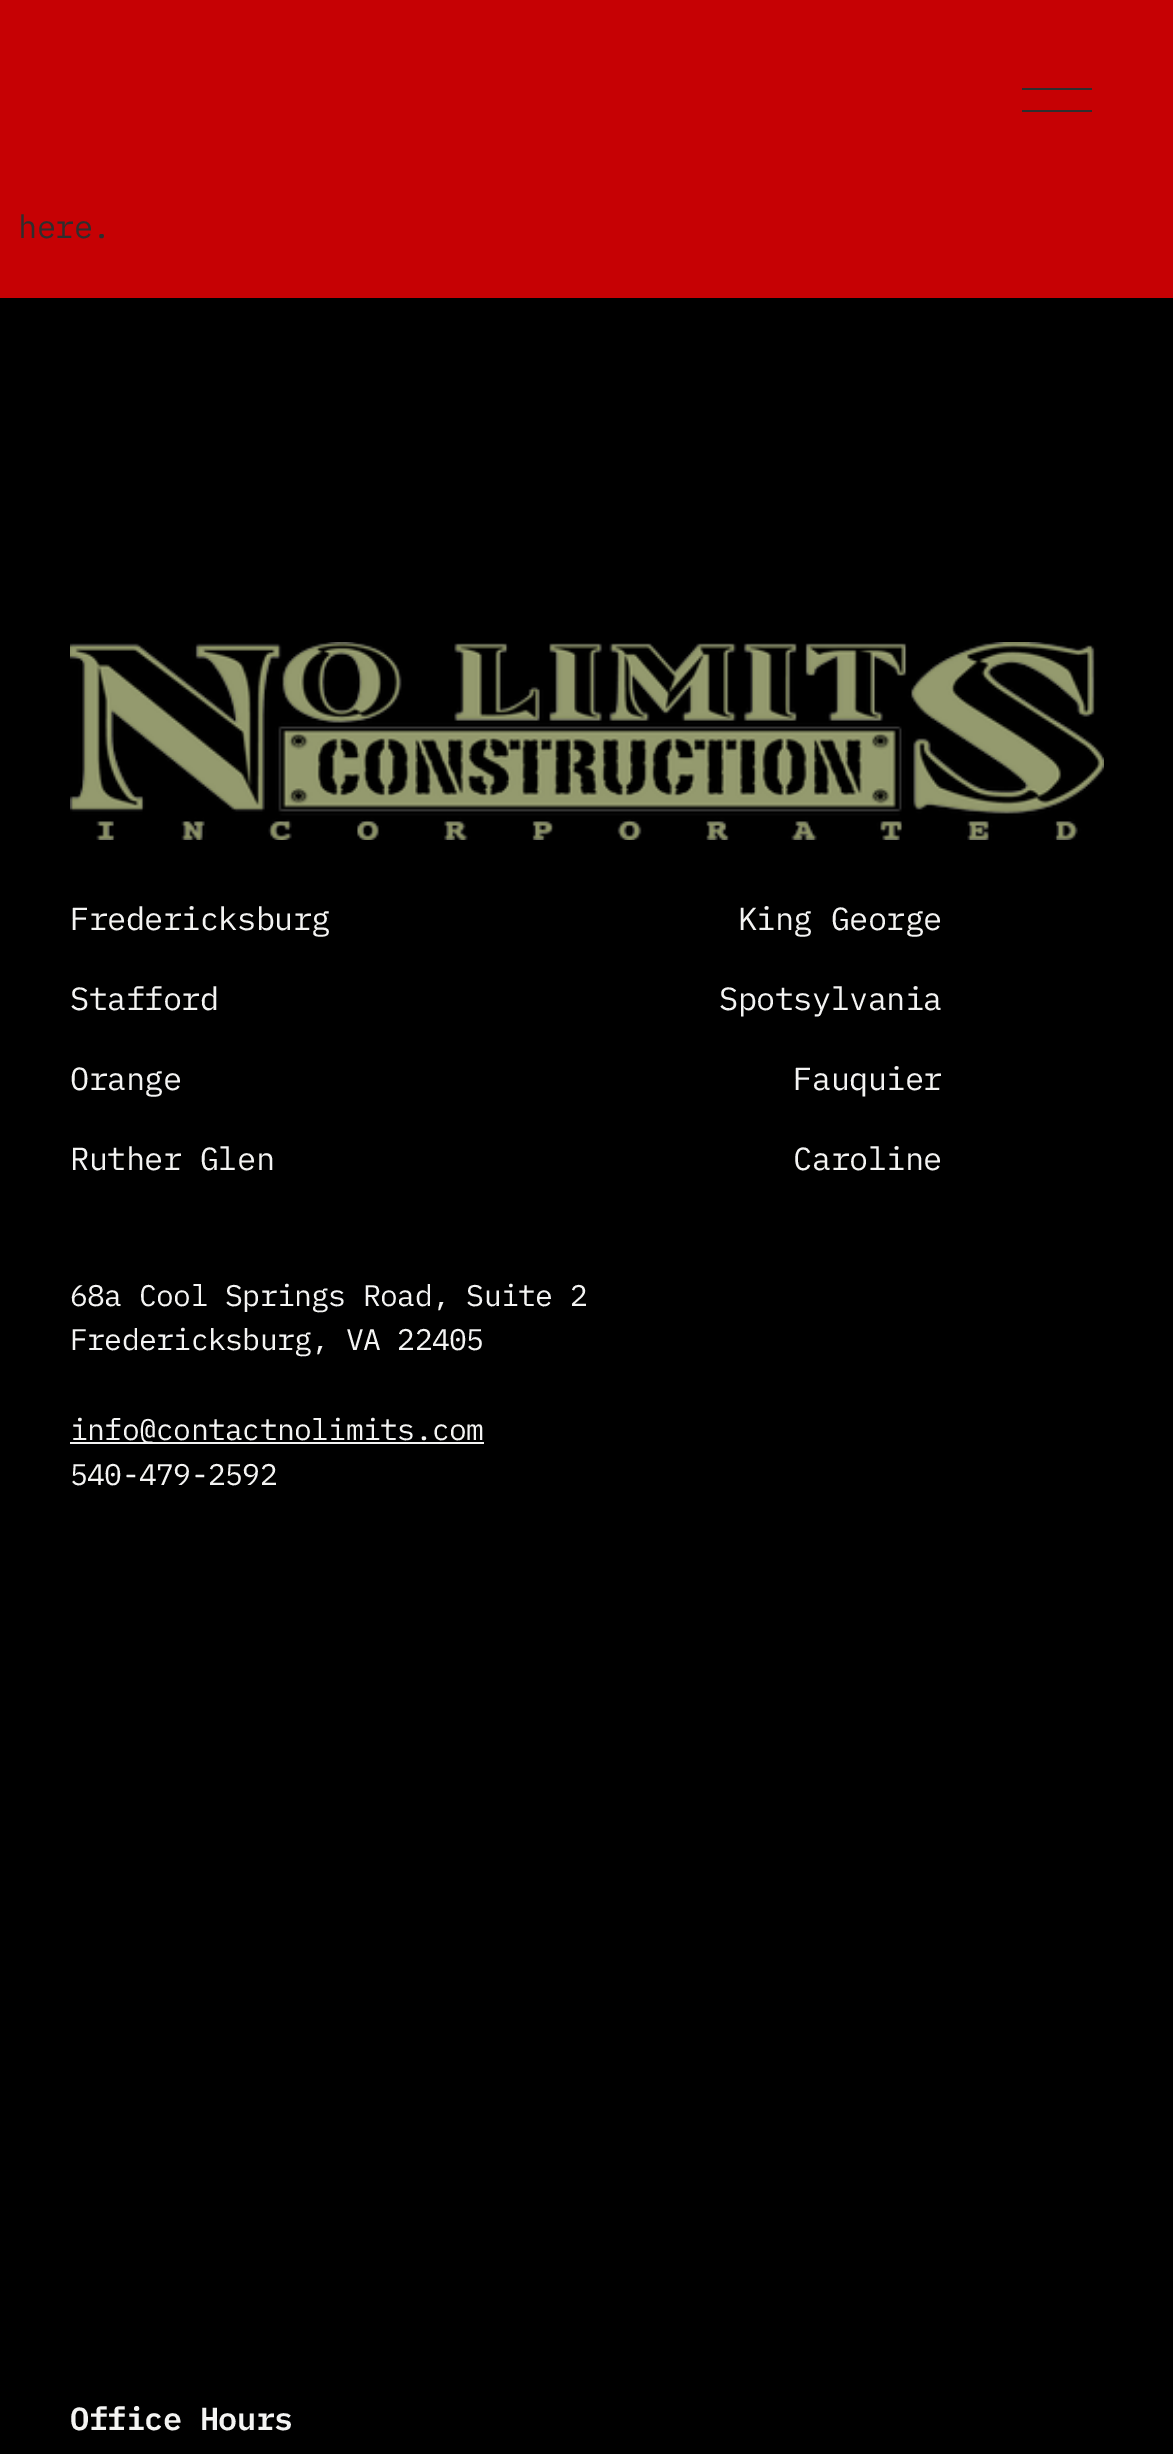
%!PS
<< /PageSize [1173 2454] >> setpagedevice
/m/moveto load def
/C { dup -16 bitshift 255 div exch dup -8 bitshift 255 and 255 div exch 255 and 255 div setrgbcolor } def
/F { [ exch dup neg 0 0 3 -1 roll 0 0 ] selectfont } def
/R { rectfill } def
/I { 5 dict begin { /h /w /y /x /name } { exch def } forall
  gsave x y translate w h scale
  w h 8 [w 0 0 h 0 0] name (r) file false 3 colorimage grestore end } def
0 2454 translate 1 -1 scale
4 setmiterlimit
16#C60104 C
0 0 1173 2454 R
16#2E2E2E C
1022 88 70 2 R
1022 110 70 2 R
/IBMPlexMono-Regular 32 F
18 238 m -.65 0 (here.) ashow
16#000000 C
0 298 1173 2156 R
(1.rgb) 70 642 1034 198 I
16#F4F4F3 C
70 930 m -.65 0 (Fredericksburg                      King George) ashow
70 1010 m -.65 0 (Stafford                           Spotsylvania) ashow
70 1090 m -.65 0 (Orange                                 Fauquier) ashow
70 1170 m -.65 0 (Ruther Glen                            Caroline) ashow
/IBMPlexMono-Regular 29.8 F
70 1306 m -.65 0 (68a Cool Springs Road, Suite 2) ashow
70 1350 m -.65 0 (Fredericksburg, VA 22405) ashow
70 1442 414 2 R
70 1440 m -.65 0 (info@contactnolimits.com) ashow
70 1485 m -.65 0 (540-479-2592) ashow
/IBMPlexMono-SemiBold 32 F
70 2430 m -.65 0 (Office Hours) ashow
showpage
